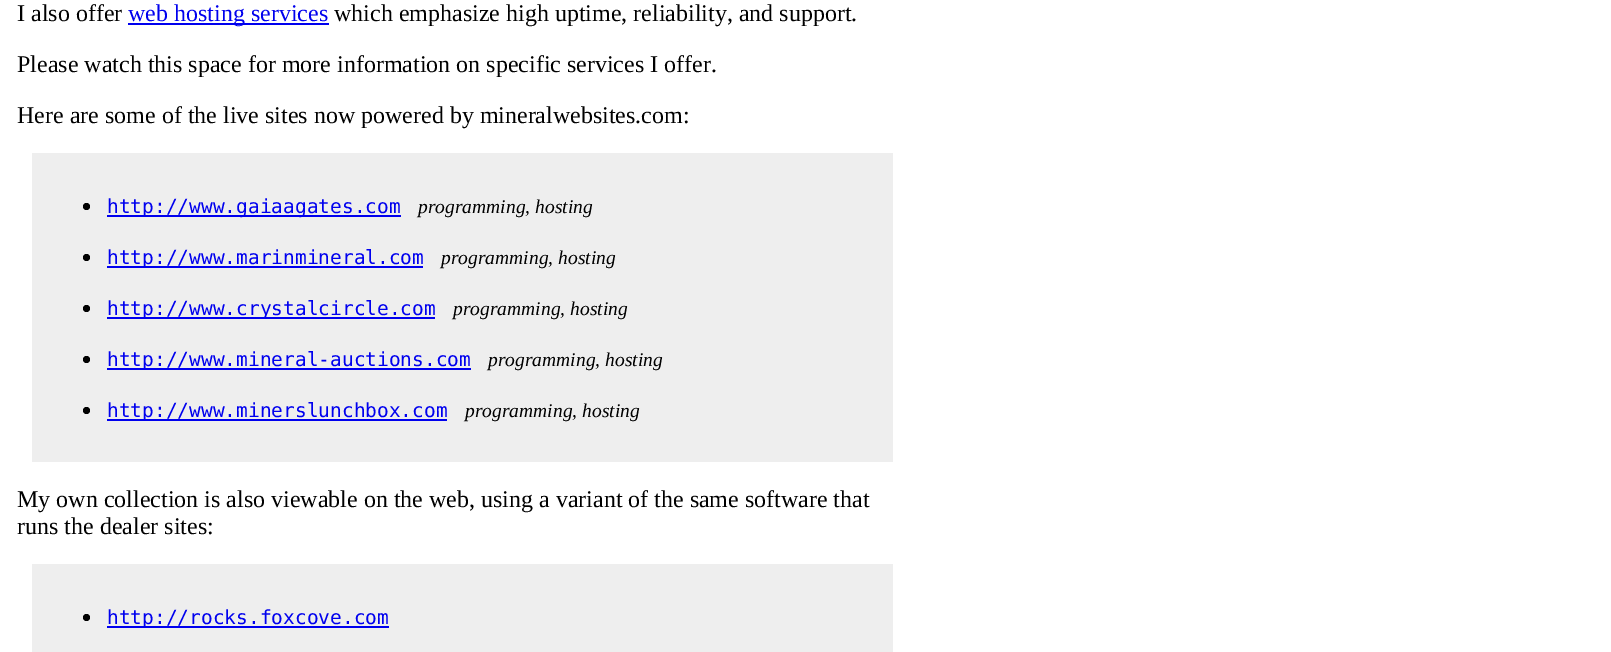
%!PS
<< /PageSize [1611 652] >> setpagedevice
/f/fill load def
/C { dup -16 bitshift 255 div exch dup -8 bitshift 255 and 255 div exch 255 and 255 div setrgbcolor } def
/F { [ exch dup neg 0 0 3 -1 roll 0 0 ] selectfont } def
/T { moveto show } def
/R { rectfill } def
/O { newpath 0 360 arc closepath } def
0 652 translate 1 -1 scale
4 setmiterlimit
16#FFFFFF C
0 0 1611 652 R
/LiberationSerif-Regular 24 F
16#000000 C
(I also offer) 17 21 T
16#0000EE C
128 23 201 2 R
(web hosting services) 128 21 T
16#000000 C
(which emphasize high uptime, reliability, and support.) 334 21 T
(Please watch this space for more information on specific services I offer.) 17 72 T
(Here are some of the live sites now powered by mineralwebsites.com:) 17 123 T
16#EEEEEE C
32 153 861 309 R
16#000000 C
86.5 206.5 3.5 O f
16#0000EE C
107 215 294 2 R
/DejaVuSansMono-Regular 19.5 F
(http://www.gaiaagates.com) 107 213 T
/LiberationSerif-Italic 19.5 F
16#000000 C
(programming, hosting) 418 213 T
86.5 257.5 3.5 O f
16#0000EE C
107 266 316 2 R
/DejaVuSansMono-Regular 19.5 F
(http://www.marinmineral.com) 107 264 T
/LiberationSerif-Italic 19.5 F
16#000000 C
(programming, hosting) 441 264 T
86.5 308.5 3.5 O f
16#0000EE C
107 317 328 2 R
/DejaVuSansMono-Regular 19.5 F
(http://www.crystalcircle.com) 107 315 T
/LiberationSerif-Italic 19.5 F
16#000000 C
(programming, hosting) 453 315 T
86.5 359.5 3.5 O f
16#0000EE C
107 368 364 2 R
/DejaVuSansMono-Regular 19.5 F
(http://www.mineral-auctions.com) 107 366 T
/LiberationSerif-Italic 19.5 F
16#000000 C
(programming, hosting) 488 366 T
86.5 410.5 3.5 O f
16#0000EE C
107 419 340 2 R
/DejaVuSansMono-Regular 19.5 F
(http://www.minerslunchbox.com) 107 417 T
/LiberationSerif-Italic 19.5 F
16#000000 C
(programming, hosting) 465 417 T
/LiberationSerif-Regular 24 F
(My own collection is also viewable on the web, using a variant of the same software that) 17 507 T
(runs the dealer sites:) 17 534 T
16#EEEEEE C
32 564 861 88 R
16#000000 C
86.5 617.5 3.5 O f
16#0000EE C
107 626 282 2 R
/DejaVuSansMono-Regular 19.5 F
(http://rocks.foxcove.com) 107 624 T
showpage
